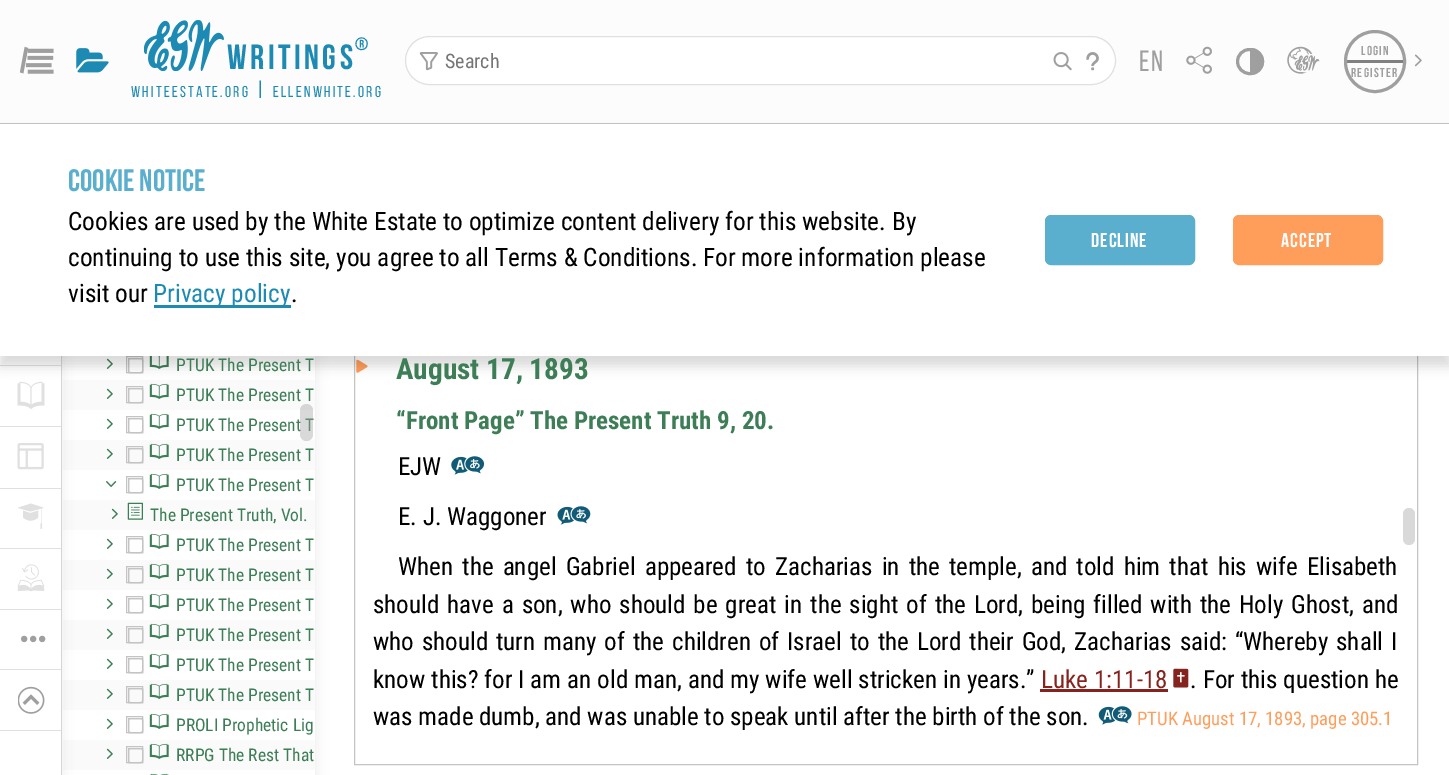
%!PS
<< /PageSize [1449 775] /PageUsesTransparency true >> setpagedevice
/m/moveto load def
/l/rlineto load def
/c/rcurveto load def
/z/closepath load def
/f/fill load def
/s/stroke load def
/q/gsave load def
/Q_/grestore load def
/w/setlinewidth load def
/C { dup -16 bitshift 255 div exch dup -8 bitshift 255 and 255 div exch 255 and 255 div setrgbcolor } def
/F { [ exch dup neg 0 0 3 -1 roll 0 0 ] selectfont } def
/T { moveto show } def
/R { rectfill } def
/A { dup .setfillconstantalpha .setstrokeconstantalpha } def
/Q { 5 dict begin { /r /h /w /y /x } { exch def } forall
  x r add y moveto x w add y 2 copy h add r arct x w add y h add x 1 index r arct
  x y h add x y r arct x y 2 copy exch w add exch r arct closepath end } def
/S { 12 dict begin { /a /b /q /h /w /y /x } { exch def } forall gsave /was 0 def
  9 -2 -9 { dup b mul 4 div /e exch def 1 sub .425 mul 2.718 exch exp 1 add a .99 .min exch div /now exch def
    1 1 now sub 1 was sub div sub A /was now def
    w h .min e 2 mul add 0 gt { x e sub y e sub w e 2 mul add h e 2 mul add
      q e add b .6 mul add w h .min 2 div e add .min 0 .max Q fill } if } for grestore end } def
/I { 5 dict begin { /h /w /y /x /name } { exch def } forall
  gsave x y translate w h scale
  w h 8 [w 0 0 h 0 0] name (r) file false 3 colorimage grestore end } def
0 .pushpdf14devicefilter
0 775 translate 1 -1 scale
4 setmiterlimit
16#FFFFFF C
0 0 1449 775 R
16#000000 C
61 126 254 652 0 6 .08 S
16#FFFFFF C
62 356 253 419 R
16#E0E0E0 C
61 356 1 419 R
16#FAFAFA C
63 380 252 30 R
63 440 252 30 R
63 500 252 30 R
63 560 252 30 R
63 620 252 30 R
63 680 252 30 R
63 740 252 30 R
16#000000 C
0 126 61 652 0 6 .08 S
16#FCFCFC C
0 0 1449 123 R
16#C4C4C4 C
0 123 1449 1 R
(1.rgb) 19 46 35 28 I
(2.rgb) 76 48 33 25 I
(3.rgb) 144 20 80 51 I
/BebasNeue-Bold 35 F
16#1C8AB3 C
227 69 m 3.5 0 (writings) ashow
/BebasNeue-Bold 18 F
355 50 m 2 0 (®) ashow
/BebasNeue-Regular 15.75 F
131 97 m 2.25 0 (whiteestate.org) ashow
/BebasNeue-Regular 22 F
256 97 m 2.25 0 (|) ashow
/BebasNeue-Regular 15.75 F
273 97 m 2.25 0 (ellenwhite.org) ashow
16#FFFFFF C
405.5 36.5 710 48 24 Q q f Q_
16#E0E0E0 C
s
(4.rgb) 419 52 19 19 I
/RobotoCondensed-Regular 20 F
16#757575 C
(Search) 445 68 T
(5.rgb) 1053 52 19 19 I
(6.rgb) 1086 52 13 19 I
/BebasNeue-Regular 29.25 F
16#9F9F9F C
1139 71 m 1 0 (en) ashow
(7.rgb) 1186 46 26 28 I
3 w
1237.5 49.5 25 24 12 Q s
1250 48 m .5 0 l 7.5 0 13.5 6 13.5 13.5 c 0 7.5 -6 13.5 -13.5 13.5 c -.5 0 l z f
(8.rgb) 1287 46 33 28 I
16#808080 C
1346 60 58 3 R
16#9F9F9F C
1345.5 31.5 59 60 29.5 Q s
/BebasNeue-Bold 13 F
1361 55 m 1.25 0 (logIn) ashow
1351 77 m 1.25 0 (Register) ashow
(9.rgb) 1414 54 8 13 I
16#FFFFFF C
0 356 61 419 R
16#E0E0E0 C
0 365 61 1 R
(10.rgb) 17 381 28 28 I
(16.rgb) 106 358 7 11 I
16#C4C4C4 C
1 w
128.5 358.5 14 14 rectstroke
126.5 356.5 16 16 rectstroke
128.5 358.5 14 14 2 Q s
(17.rgb) 149 356 20 13 I
(19.rgb) 149 383 20 16 I
(24.rgb) 356 359 12 14 I
(25.rgb) 451 456 34 19 I
(26.rgb) 557 506 34 19 I
16#85241E C
1040 689 128 3 R
(27.rgb) 1173 668 16 20 I
(28.rgb) 1098 706 34 19 I
16#D9D9D9 C
1403 508 12 37 6 Q f
16#C4C4C4 C
354.5 224.5 1063 540 rectstroke
16#000000 C
0 134 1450 232 0 6 .15 S
16#FFFFFF C
0 124 1449 232 R
/BebasNeue-Bold 31 F
16#5AAECE C
(Cookie Notice) 68 191 T
/RobotoCondensed-Regular 25.3 F
16#000000 C
(Cookies are used by the White Estate to optimize content delivery for this website. By) 68 230 T
(continuing to use this site, you agree to all Terms & Conditions. For more information please) 68 266 T
(visit our) 68 302 T
16#1C8AB3 C
154 305 137 3 R
(Privacy policy) 153 302 T
16#000000 C
(.) 291 302 T
16#5AAECE C
1045.5 215.5 149 49 5.5 Q q f Q_
s
/BebasNeue-Bold 20 F
16#FFFFFF C
1091 247 m 1 0 (Decline) ashow
16#FF9D5B C
1233.5 215.5 149 49 5.5 Q q f Q_
s
16#FFFFFF C
1281 247 m 1 0 (Accept) ashow
16#E0E0E0 C
0 426 61 1 R
0 488 61 1 R
(11.rgb) 17 443 27 27 I
0 548 61 1 R
(12.rgb) 18 503 26 26 I
0 609 61 1 R
(13.rgb) 17 564 28 28 I
0 669 61 1 R
(14.rgb) 21 635 25 8 I
0 730 61 1 R
(15.rgb) 18 686 27 28 I
/RobotoCondensed-Regular 17.5 F
16#3D7E57 C
(PTUK The Present T) 176 371 T
(18.rgb) 106 388 7 11 I
16#C4C4C4 C
128.5 388.5 14 14 rectstroke
126.5 386.5 16 16 rectstroke
128.5 388.5 14 14 2 Q s
16#3D7E57 C
(PTUK The Present T) 176 401 T
(16.rgb) 106 418 7 11 I
16#C4C4C4 C
128.5 418.5 14 14 rectstroke
126.5 416.5 16 16 rectstroke
128.5 418.5 14 14 2 Q s
(20.rgb) 149 413 20 16 I
16#3D7E57 C
(PTUK The Present T) 176 431 T
(18.rgb) 106 448 7 11 I
16#C4C4C4 C
128.5 448.5 14 14 rectstroke
126.5 446.5 16 16 rectstroke
128.5 448.5 14 14 2 Q s
(19.rgb) 149 443 20 16 I
16#3D7E57 C
(PTUK The Present T) 176 461 T
(21.rgb) 106 481 11 6 I
16#C4C4C4 C
128.5 478.5 14 14 rectstroke
126.5 476.5 16 16 rectstroke
128.5 478.5 14 14 2 Q s
(20.rgb) 149 473 20 16 I
16#3D7E57 C
(PTUK The Present T) 176 491 T
(18.rgb) 111 508 7 11 I
(22.rgb) 127 502 16 18 I
(The Present Truth, Vol.) 150 521 T
(16.rgb) 106 538 7 11 I
16#C4C4C4 C
128.5 538.5 14 14 rectstroke
126.5 536.5 16 16 rectstroke
128.5 538.5 14 14 2 Q s
(20.rgb) 149 533 20 16 I
16#3D7E57 C
(PTUK The Present T) 176 551 T
(18.rgb) 106 568 7 11 I
16#C4C4C4 C
128.5 568.5 14 14 rectstroke
126.5 566.5 16 16 rectstroke
128.5 568.5 14 14 2 Q s
(19.rgb) 149 563 20 16 I
16#3D7E57 C
(PTUK The Present T) 176 581 T
(16.rgb) 106 598 7 11 I
16#C4C4C4 C
128.5 598.5 14 14 rectstroke
126.5 596.5 16 16 rectstroke
128.5 598.5 14 14 2 Q s
(20.rgb) 149 593 20 16 I
16#3D7E57 C
(PTUK The Present T) 176 611 T
(18.rgb) 106 628 7 11 I
16#C4C4C4 C
128.5 628.5 14 14 rectstroke
126.5 626.5 16 16 rectstroke
128.5 628.5 14 14 2 Q s
(19.rgb) 149 623 20 16 I
16#3D7E57 C
(PTUK The Present T) 176 641 T
(16.rgb) 106 658 7 11 I
16#C4C4C4 C
128.5 658.5 14 14 rectstroke
126.5 656.5 16 16 rectstroke
128.5 658.5 14 14 2 Q s
(20.rgb) 149 653 20 16 I
16#3D7E57 C
(PTUK The Present T) 176 671 T
(18.rgb) 106 688 7 11 I
16#C4C4C4 C
128.5 688.5 14 14 rectstroke
126.5 686.5 16 16 rectstroke
128.5 688.5 14 14 2 Q s
(19.rgb) 149 683 20 16 I
16#3D7E57 C
(PTUK The Present T) 176 701 T
(16.rgb) 106 718 7 11 I
16#C4C4C4 C
128.5 718.5 14 14 rectstroke
126.5 716.5 16 16 rectstroke
128.5 718.5 14 14 2 Q s
(20.rgb) 149 713 20 16 I
16#3D7E57 C
(PROLI Prophetic Lig) 176 731 T
(18.rgb) 106 748 7 11 I
16#C4C4C4 C
128.5 748.5 14 14 rectstroke
126.5 746.5 16 16 rectstroke
128.5 748.5 14 14 2 Q s
(19.rgb) 149 743 20 16 I
16#3D7E57 C
(RRPG The Rest That) 176 761 T
(23.rgb) 149 773 20 2 I
0.4 A
16#9F9F9F C
300 404 13 37 6.5 Q f
/RobotoCondensed-Bold 29.25 F
1 A
16#3D7E57 C
(August 17, 1893) 396 379 T
/RobotoCondensed-Bold 25 F
(“Front Page” The Present Truth 9, 20.) 396 429 T
/RobotoCondensed-Regular 25 F
16#000000 C
(EJW) 398 475 T
(E. J. Waggoner) 398 525 T
398 575 m 3.5 0 32 (When the angel Gabriel appeared to Zacharias in the temple, and told him that his wife Elisabeth) widthshow
373 613 m 2.25 0 32 (should have a son, who should be great in the sight of the Lord, being filled with the Holy Ghost, and) widthshow
373 650 m 2.25 0 32 (who should turn many of the children of Israel to the Lord their God, Zacharias said: “Whereby shall I) widthshow
373 688 m .25 0 32 (know this? for I am an old man, and my wife well stricken in years.”) widthshow
16#85241E C
(Luke 1:11-18) 1041 688 T
16#000000 C
1190 688 m .25 0 32 (. For this question he) widthshow
(was made dumb, and was unable to speak until after the birth of the son.) 373 725 T
/RobotoCondensed-Regular 18.75 F
16#FF9D5B C
(PTUK August 17, 1893, page 305.1) 1137 725 T
.poppdf14devicefilter showpage
